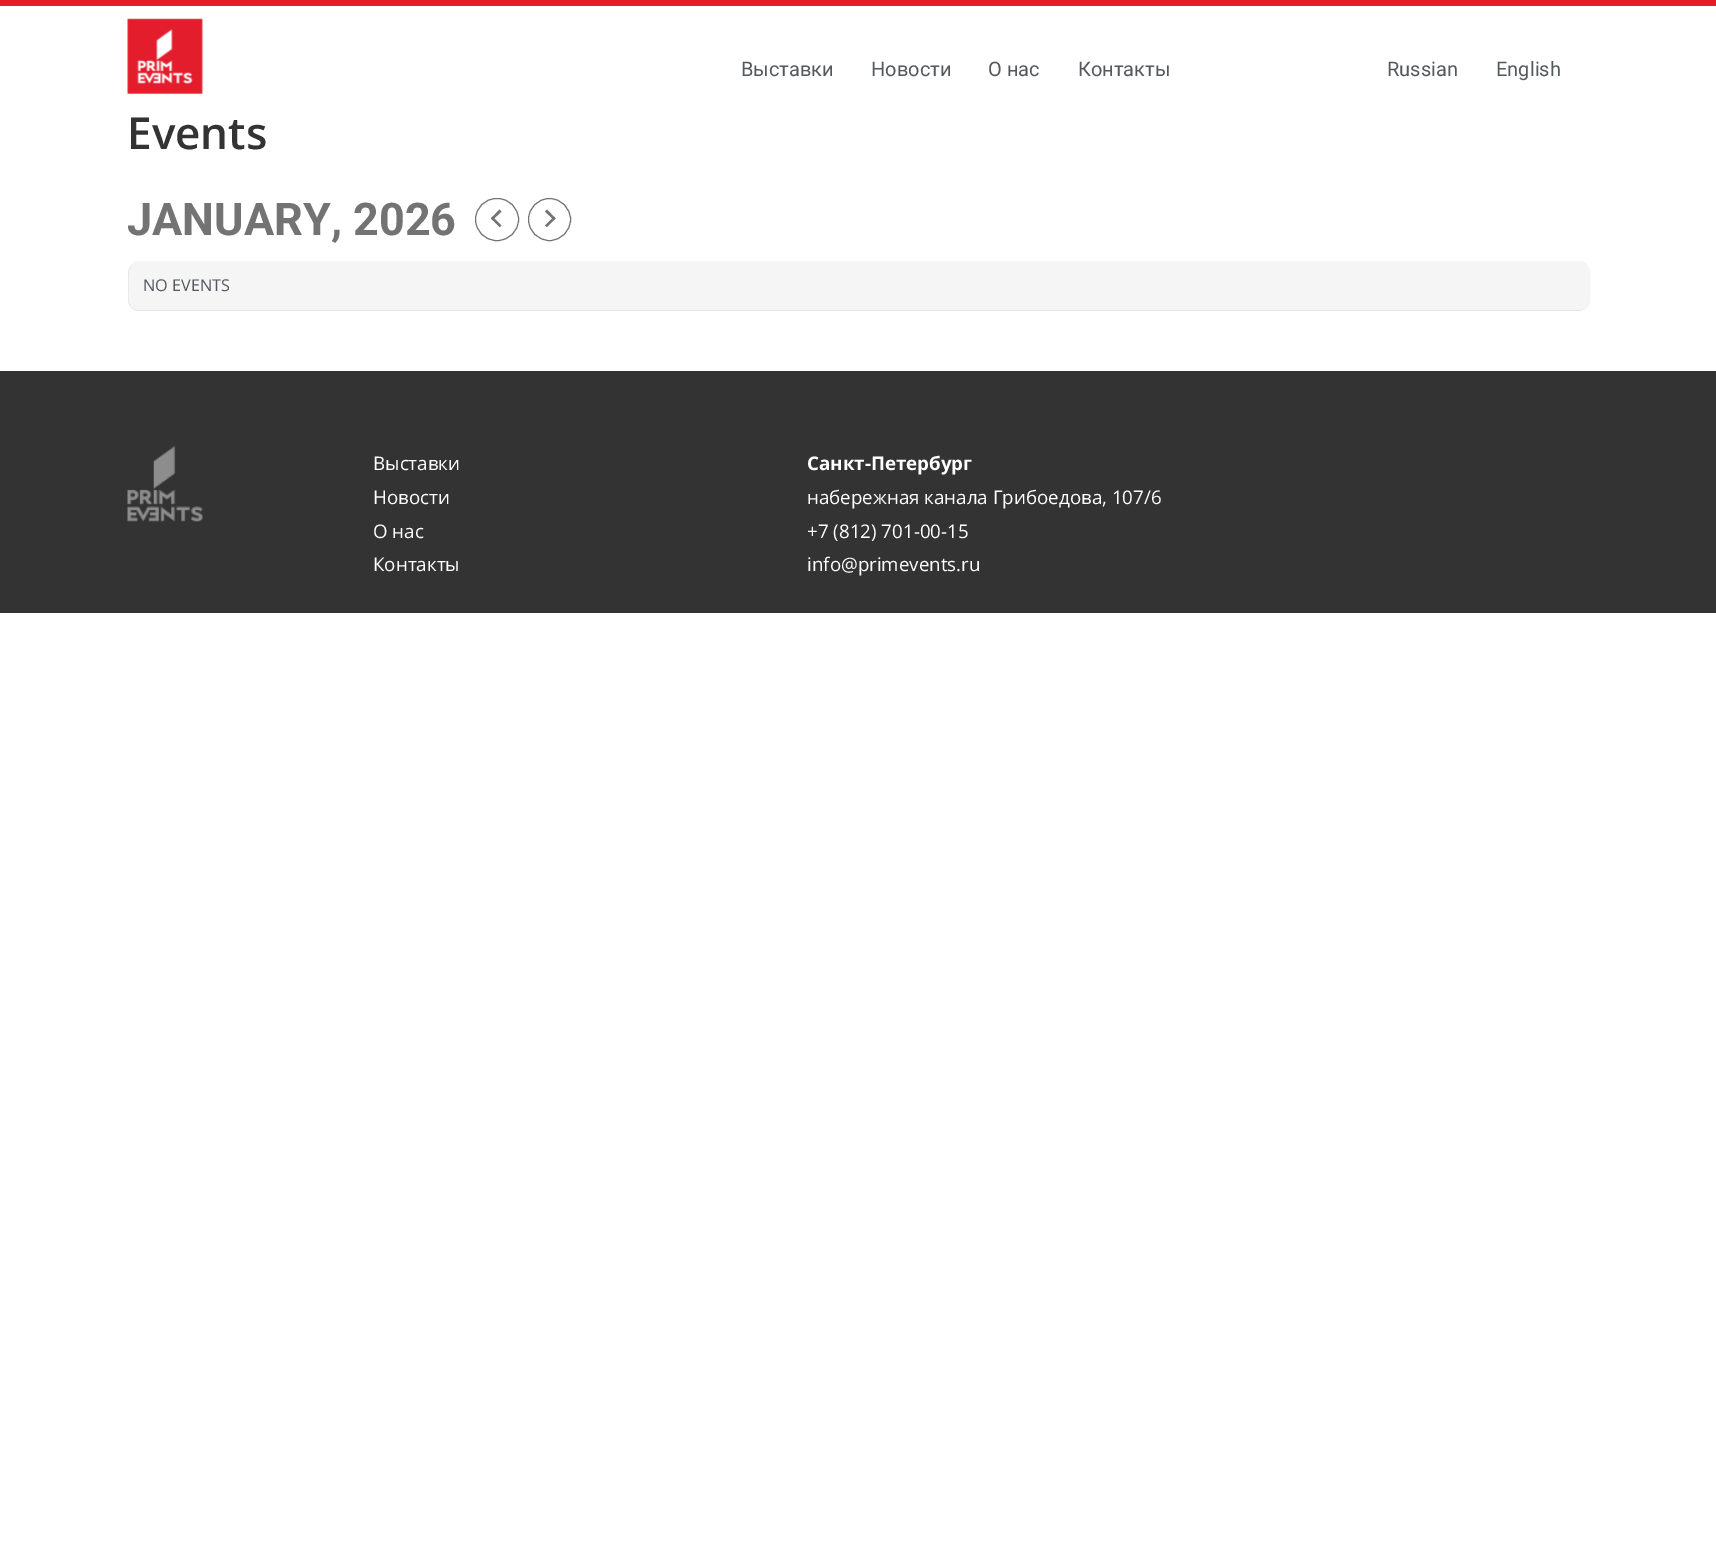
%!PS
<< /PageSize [1716 1566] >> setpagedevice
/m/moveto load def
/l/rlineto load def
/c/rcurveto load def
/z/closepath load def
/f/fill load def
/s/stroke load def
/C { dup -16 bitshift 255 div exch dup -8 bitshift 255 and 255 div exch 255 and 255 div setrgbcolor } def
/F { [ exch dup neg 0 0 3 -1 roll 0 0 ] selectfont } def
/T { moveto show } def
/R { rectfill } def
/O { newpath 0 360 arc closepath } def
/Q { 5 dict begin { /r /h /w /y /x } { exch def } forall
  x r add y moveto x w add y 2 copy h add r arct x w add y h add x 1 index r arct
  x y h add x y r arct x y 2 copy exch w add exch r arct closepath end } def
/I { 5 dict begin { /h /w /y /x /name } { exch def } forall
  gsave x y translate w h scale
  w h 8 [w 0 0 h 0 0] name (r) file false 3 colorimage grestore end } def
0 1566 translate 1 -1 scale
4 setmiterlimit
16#FFFFFF C
0 0 1716 1566 R
16#E41D2D C
0 0 1716 6 R
(1.rgb) 127 18 76 76 I
/Roboto-Regular 20 F
16#54595F C
(Выставки) 741 76 T
(Новости) 871 76 T
(О нас) 988 76 T
(Контакты) 1078 76 T
(Russian) 1387 76 T
(English) 1496 76 T
/OpenSans-SemiBold 44 F
16#333333 C
(Events) 127 149 T
/Roboto-Bold 45 F
16#737373 C
(JANUARY, 2026) 127 235 T
475.5 198.5 43 42 21 Q s
501.5 225.5 m -2 1.5 l -8.5 -8.5 l 1.5 -2 l z f
501.5 211.5 m -9 8.5 l -1.5 -1.5 l 8.5 -9 l z f
549.5 219.5 21 O s
545 211.5 m 2 -2 l 8.5 9 l -1.5 1.5 l z f
545 225.5 m 9 -9 l 1.5 2 l -8.5 8.5 l z f
16#E5E5E5 C
140 261 m 1438 0 l 6 0 12 6 12 13 c 0 25 l 0 7 -6 12 -12 12 c -1438 0 l -7 0 -12 -5 -12 -12 c 0 -25 l 0 -7 5 -13 12 -13 c z 140 261 m 1438 0 l 6 0 12 6 12 13 c 0 25 l 0 6 -6 11 -12 11 c -1438 0 l -6 0 -11 -5 -11 -11 c 0 -25 l 0 -7 5 -13 11 -13 c z eofill
16#F5F5F5 C
140 261 m -13 0 -11 17 -11 25 c 0 9 -3 24 11 24 c 1438 0 l 14 0 12 -14 12 -24 c 0 -9 2 -25 -12 -25 c z f
/OpenSans-Regular 16.25 F
16#54595F C
(NO EVENTS) 143 291 T
16#333333 C
0 371 1716 242 R
(2.rgb) 127 446 76 76 I
/OpenSans-Regular 18.75 F
16#FFFFFF C
(Выставки) 373 470 T
(Новости) 373 504 T
(О нас) 373 538 T
(Контакты) 373 571 T
/OpenSans-Bold 18.75 F
(Санкт-Петербург) 807 470 T
/OpenSans-Regular 18.75 F
(набережная канала Грибоедова, 107/6) 807 504 T
(+7 \(812\) 701-00-15) 807 538 T
(info@primevents.ru) 807 571 T
showpage
